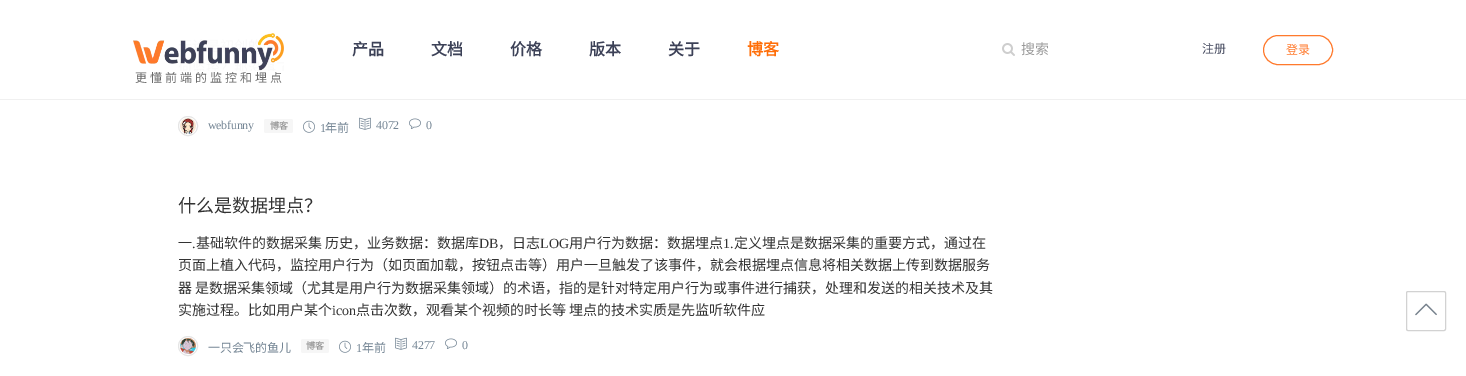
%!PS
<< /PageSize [1466 376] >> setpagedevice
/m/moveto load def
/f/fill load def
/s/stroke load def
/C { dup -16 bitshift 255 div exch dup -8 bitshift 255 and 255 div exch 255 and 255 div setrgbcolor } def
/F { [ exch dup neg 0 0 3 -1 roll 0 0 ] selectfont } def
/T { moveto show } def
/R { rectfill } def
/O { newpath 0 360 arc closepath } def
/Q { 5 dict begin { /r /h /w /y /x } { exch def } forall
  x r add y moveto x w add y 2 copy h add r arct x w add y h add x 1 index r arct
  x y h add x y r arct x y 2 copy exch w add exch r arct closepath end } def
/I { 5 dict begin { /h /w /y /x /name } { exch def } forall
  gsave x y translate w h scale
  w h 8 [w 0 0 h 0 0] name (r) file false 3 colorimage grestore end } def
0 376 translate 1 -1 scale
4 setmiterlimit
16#FFFFFF C
0 0 1466 376 R
16#F0F0F0 C
0 99 1466 1 R
/NotoSansCJKSC-Bold 16 F
16#3C4157 C
(产品) 352 55 T
(文档) 431 55 T
(价格) 510 55 T
(版本) 589 55 T
(关于) 668 55 T
16#FF6E08 C
(博客) 747 55 T
(1.rgb) 1002 43 13 13 I
/NotoSansCJKSC-Regular 14 F
16#999999 C
(搜索) 1021 54 T
/NotoSansCJKSC-Regular 12 F
16#3C4157 C
(注册) 1202 53 T
16#FF7A2D C
1263.5 35.5 69 29 14.5 Q s
(登录) 1286 54 T
(2.rgb) 133 33 151 38 I
16#6B6B6B C
135 82 m 3 0 (更懂前端的监控和埋点) ashow
16#E5E5E5 C
188 126 9.5 O s
(3.rgb) 180 118 16 16 I
/LiberationSerif-Regular 12 F
16#748594 C
208 129 m -.25 0 (webfunny) ashow
16#F6F6F6 C
264 119 29 14 2 Q f
/NotoSansCJKSC-Bold 9 F
16#999999 C
270 129 m -.25 0 (博客) ashow
(4.rgb) 303 120 12 13 I
/LiberationSerif-Regular 12 F
16#748594 C
320 132 m -.25 0 (1) ashow
/NotoSansCJKSC-Regular 12 F
325 132 m -.25 0 (年前) ashow
(5.rgb) 359 117 12 13 I
/LiberationSerif-Regular 12 F
376 129 m -.25 0 (4072) ashow
(6.rgb) 409 118 12 11 I
426 129 m -.25 0 (0) ashow
/NotoSansCJKSC-Regular 18 F
16#333333 C
(什么是数据埋点？) 178 212 T
/NotoSansCJKSC-Regular 14 F
(一) 178 248 T
(基础软件的数据采集 历史，业务数据：数据库) 196 248 T
/LiberationSerif-Regular 14 F
(DB) 479 248 T
/NotoSansCJKSC-Regular 14 F
(，日志) 498 248 T
/LiberationSerif-Regular 14 F
(LOG) 540 248 T
/NotoSansCJKSC-Regular 14 F
(用户行为数据：数据埋点) 569 248 T
/LiberationSerif-Regular 14 F
(1.) 723 248 T
/NotoSansCJKSC-Regular 14 F
(定义埋点是数据采集的重要方式，通过在) 734 248 T
/LiberationSerif-Regular 14 F
(.) 192 248 T
/NotoSansCJKSC-Regular 14 F
(页面上植入代码，监控用户行为（如页面加载，按钮点击等）用户一旦触发了该事件，就会根据埋点信息将相关数据上传到数据服务) 178 270 T
(器 是数据采集领域（尤其是用户行为数据采集领域）的术语，指的是针对特定用户行为或事件进行捕获，处理和发送的相关技术及其) 178 293 T
(实施过程。比如用户某个) 178 315 T
/LiberationSerif-Regular 14 F
(icon) 332 315 T
/NotoSansCJKSC-Regular 14 F
(点击次数，观看某个视频的时长等 埋点的技术实质是先监听软件应) 356 315 T
16#E5E5E5 C
188 346 9.5 O s
(7.rgb) 180 338 16 16 I
/NotoSansCJKSC-Regular 12 F
16#748594 C
208 352 m -.25 0 (一只会飞的鱼儿) ashow
16#F6F6F6 C
301 339 28 14 2 Q f
/NotoSansCJKSC-Bold 9 F
16#999999 C
306 349 m -.25 0 (博客) ashow
(4.rgb) 339 340 12 13 I
/LiberationSerif-Regular 12 F
16#748594 C
356 352 m -.25 0 (1) ashow
/NotoSansCJKSC-Regular 12 F
362 352 m -.25 0 (年前) ashow
(5.rgb) 395 337 12 13 I
/LiberationSerif-Regular 12 F
412 349 m -.25 0 (4277) ashow
(6.rgb) 445 338 12 11 I
462 349 m -.25 0 (0) ashow
16#D2D2D2 C
1406.5 291.5 39 39 1.5 Q s
(8.rgb) 1415 303 22 13 I
showpage
